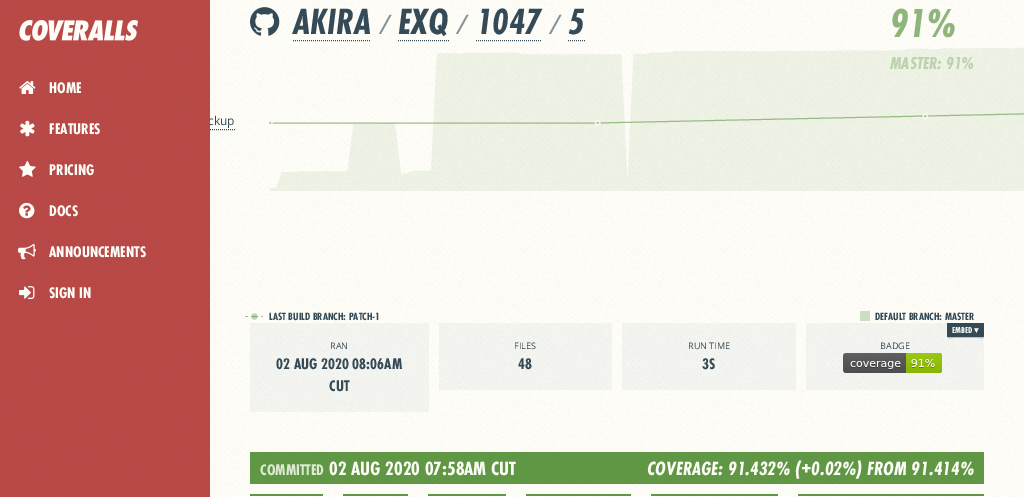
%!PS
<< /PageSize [1024 497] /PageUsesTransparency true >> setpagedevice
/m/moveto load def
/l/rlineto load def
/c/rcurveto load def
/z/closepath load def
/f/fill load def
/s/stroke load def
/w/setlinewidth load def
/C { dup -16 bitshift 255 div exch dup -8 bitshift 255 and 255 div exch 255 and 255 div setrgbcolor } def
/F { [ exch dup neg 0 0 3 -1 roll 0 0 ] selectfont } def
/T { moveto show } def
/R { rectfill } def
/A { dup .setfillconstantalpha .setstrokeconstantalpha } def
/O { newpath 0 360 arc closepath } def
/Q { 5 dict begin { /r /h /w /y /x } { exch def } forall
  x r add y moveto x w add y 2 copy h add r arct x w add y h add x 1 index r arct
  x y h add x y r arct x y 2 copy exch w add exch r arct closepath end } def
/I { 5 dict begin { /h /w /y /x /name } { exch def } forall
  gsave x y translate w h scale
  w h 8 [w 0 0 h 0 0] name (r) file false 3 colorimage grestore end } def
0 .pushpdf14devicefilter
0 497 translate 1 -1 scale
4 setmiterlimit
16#FEFDF8 C
0 0 1024 497 R
(1.rgb) 210 0 814 497 I
/OpenSans-Regular 12 F
16#354A57 C
(ckup) 208 125 T
[1 1] 0 setdash
98 129.5 m 137 0 l s
16#B94947 C
0 0 210 497 R
(2.rgb) 0 0 210 497 I
0 18 210 29 R
(3.rgb) 19 20 119 21 I
(4.rgb) 19 81 17 13 I
/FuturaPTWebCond-Bold 16 F
16#FEFDF8 C
(HOME) 49 93 T
(5.rgb) 20 120 15 17 I
(FEATURES) 49 134 T
(6.rgb) 19 160 17 17 I
(PRICING) 49 175 T
(7.rgb) 19 202 16 17 I
(DOCS) 49 216 T
(8.rgb) 18 243 18 17 I
(ANNOUNCEMENTS) 49 257 T
(9.rgb) 19 286 16 13 I
(SIGN IN) 49 298 T
(10.rgb) 250 7 30 29 I
16#354A57 C
293 40.5 m 78 0 l s
/FuturaPTWebCond-BoldItalic 38 F
(AKIRA) 293 34 T
/OpenSans-Italic 27 F
16#859197 C
(/) 380 34 T
16#354A57 C
398 40.5 m 51 0 l s
/FuturaPTWebCond-BoldItalic 38 F
(EXQ) 398 34 T
/OpenSans-Italic 27 F
16#859197 C
(/) 457 34 T
16#354A57 C
476 40.5 m 65 0 l s
/FuturaPTWebCond-BoldItalic 38 F
(1047) 476 34 T
/OpenSans-Italic 27 F
16#859197 C
(/) 550 34 T
16#354A57 C
568 40.5 m 17 0 l s
/FuturaPTWebCond-BoldItalic 38 F
(5) 568 34 T
/FuturaPTWebCond-BoldItalic 42 F
16#8EB57A C
(91%) 890 37 T
(11.rgb) 270 47 754 144 I
/FuturaPTWebCond-BoldItalic 18 F
16#BBD2AC C
(MASTER: 91%) 890 69 T
0.6 A
16#5F9744 C
[] 0 setdash
270 123 m 327.5 0 l 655.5 -14 l s
0.32 A
270 122.8 2 O f
0.8 A
16#FEFDF8 C
1.5 w
270 122.8 2 O s
0.32 A
16#5F9744 C
597.7 122.8 2 O f
0.8 A
16#FEFDF8 C
597.7 122.8 2 O s
0.32 A
16#5F9744 C
925.3 116.3 2 O f
0.8 A
16#FEFDF8 C
925.3 116.3 2 O s
0.6 A
16#5F9744 C
245 316 18 1 R
0.4 A
254.5 316.5 5 O f
1 A
16#FEFDF8 C
3 w
254.5 316.5 5 O s
/FuturaPTWebCond-Bold 11 F
16#354A57 C
(LAST BUILD BRANCH: PATCH-1) 269 320 T
0.3 A
16#5F9744 C
860 311 10 10 R
1 A
16#354A57 C
(DEFAULT BRANCH: MASTER) 875 320 T
0.05 A
806 323 178 67 R
0.2 A
16#000000 C
947 336 m 0 3.5 3 2 7 2 c 23 0 l 4 0 7 1.5 7 -2 c 0 .5 -.5 1 -1 1 c -35 0 l -.5 0 -1 -.5 -1 -1 c z f
1 A
16#354A57 C
947 323 37 14 1 Q f
/FuturaPTWebCond-Bold 9 F
16#FEFDF8 C
(EMBED) 952 333 T
/DejaVuSans-Bold 9 F
(▾) 974 333 T
(12.rgb) 843 353 99 20 I
/OpenSans-Regular 9 F
16#354A57 C
(BADGE) 880 349 T
0.05 A
250 323 179 89 R
1 A
(RAN) 330 349 T
/FuturaPTWebCond-Bold 16 F
(02 AUG 2020 08:06AM) 276 369 T
(CUT) 329 391 T
0.05 A
439 323 173 67 R
/OpenSans-Regular 9 F
1 A
(FILES) 514 349 T
/FuturaPTWebCond-Bold 16 F
(48) 518 369 T
0.05 A
622 323 174 67 R
/OpenSans-Regular 9 F
1 A
(RUN TIME) 688 349 T
/FuturaPTWebCond-Bold 16 F
(3S) 702 369 T
16#5F9744 C
250 452 734 32 R
16#DEE9D4 C
(COMMITTED) 260 475 T
/FuturaPTWebCond-Bold 20 F
16#FEFDF8 C
(02 AUG 2020 07:58AM CUT) 329 475 T
/FuturaPTWebCond-BoldItalic 20 F
(COVERAGE: 91.432% \(+0.02%\) FROM 91.414%) 647 475 T
16#5F9744 C
250 494 73 2 R
343 494 65 2 R
428 494 78 2 R
526 494 105 2 R
651 494 127 2 R
798 494 186 2 R
.poppdf14devicefilter showpage
